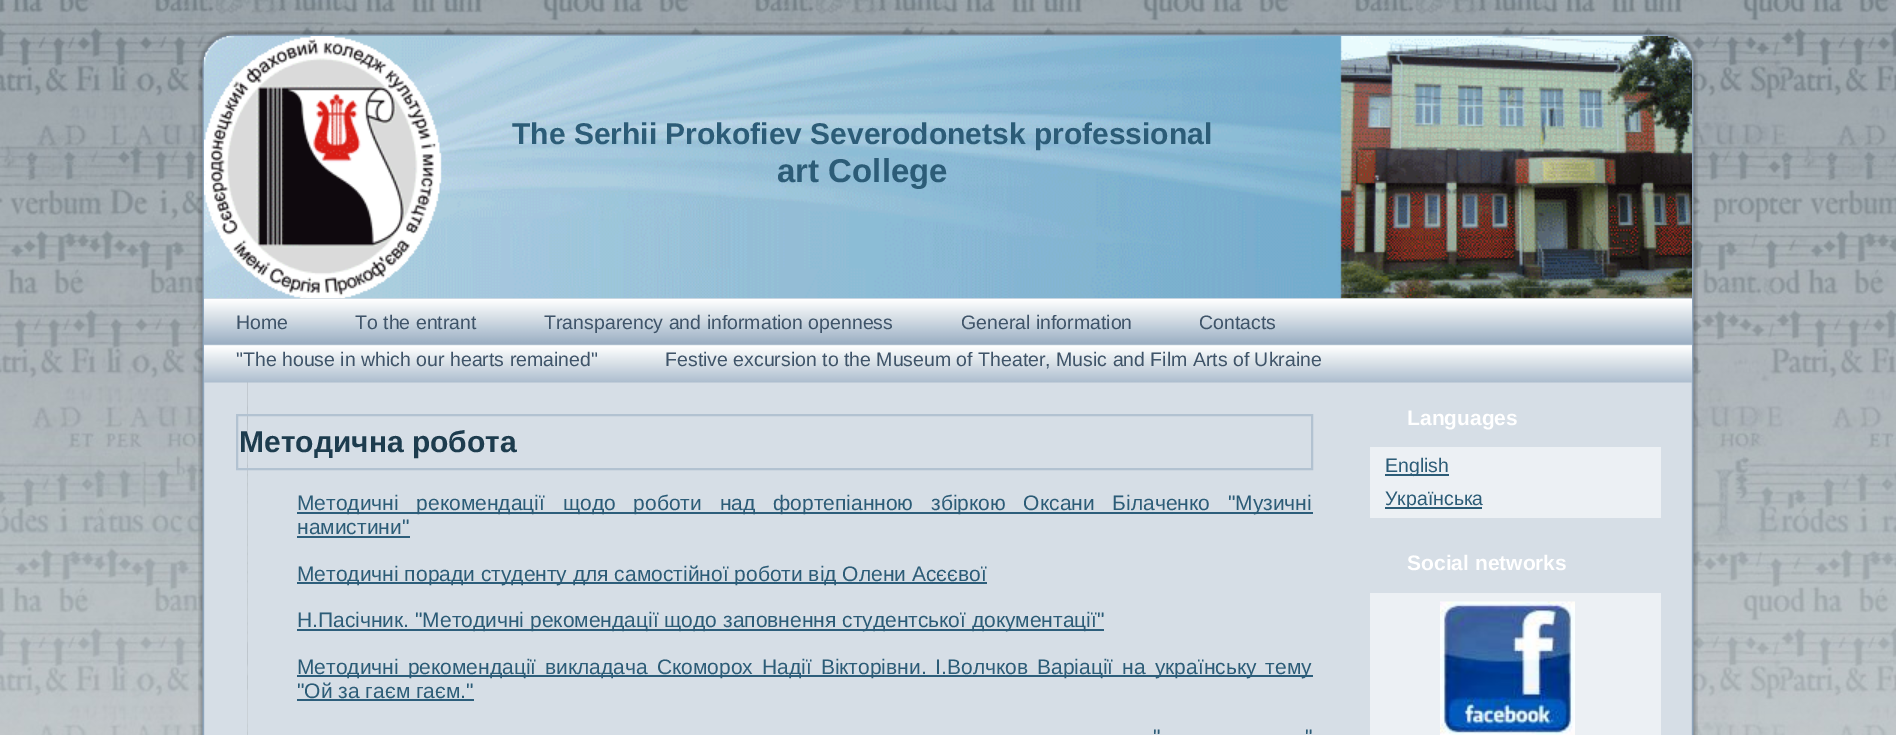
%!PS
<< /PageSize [1896 735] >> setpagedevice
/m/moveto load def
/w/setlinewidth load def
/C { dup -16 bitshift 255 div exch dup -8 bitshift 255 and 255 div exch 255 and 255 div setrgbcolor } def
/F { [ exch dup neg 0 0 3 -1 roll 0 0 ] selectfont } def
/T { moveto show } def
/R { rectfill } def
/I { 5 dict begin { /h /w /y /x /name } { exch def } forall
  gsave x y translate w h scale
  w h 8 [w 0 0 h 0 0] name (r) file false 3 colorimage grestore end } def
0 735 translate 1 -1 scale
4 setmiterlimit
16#FFFFFF C
0 0 1896 735 R
(1.rgb) 0 0 1896 735 I
(2.rgb) 198 30 50 50 I
(4.rgb) 1648 30 50 50 I
(3.rgb) 247 30 1402 6 I
(5.rgb) 198 79 50 656 I
(9.rgb) 1649 79 49 656 I
16#D6DEE6 C
248 298 1401 437 R
(6.rgb) 204 36 1488 263 I
/LiberationSans-Bold 30 F
16#2C5C77 C
(The Serhii Prokofiev Severodonetsk professional) 512 144 T
/LiberationSans-Bold 33 F
(art College) 777 182 T
(7.rgb) 204 298 1488 85 I
/LiberationSans-Regular 19.5 F
16#3F5469 C
(Home) 236 329 T
(To the entrant) 355 329 T
(Transparency and information openness) 544 329 T
(General information) 961 329 T
(Contacts) 1199 329 T
("The house in which our hearts remained") 236 366 T
(Festive excursion to the Museum of Theater, Music and Film Arts of Ukraine) 665 366 T
16#B2C2D1 C
2 w
237 415 1075 54 rectstroke
/LiberationSans-Bold 30 F
16#1D3C4E C
(Методична робота) 239 452 T
16#2D5E7B C
297 512 1016 2 R
/LiberationSans-Regular 21 F
16#2C5C77 C
297 510 m 12 0 32 (Методичні рекомендації щодо роботи над фортепіанною збіркою Оксани Білаченко "Музичні) widthshow
(намистини") 297 534 T
16#2D5E7B C
297 536 113 2 R
297 582 690 2 R
16#2C5C77 C
(Методичні поради студенту для самостійної роботи від Олени Асєєвої) 297 581 T
16#2D5E7B C
297 629 807 2 R
16#2C5C77 C
(Н.Пасічник. "Методичні рекомендації щодо заповнення студентської документації") 297 627 T
16#2D5E7B C
297 675 1016 2 R
16#2C5C77 C
297 674 m 3.25 0 32 (Методичні рекомендації викладача Скоморох Надії Вікторівни. І.Волчков Варіації на українську тему) widthshow
("Ой за гаєм гаєм.") 297 698 T
16#2D5E7B C
297 699 177 2 R
16#2C5C77 C
1153 744 m 1 0 32 (") widthshow
1305 744 m 1 0 32 (") widthshow
/LiberationSans-Bold 21 F
16#FFFFFF C
(Languages) 1407 425 T
16#ECF0F4 C
1370 447 291 71 R
16#2C5C77 C
1385 474 64 2 R
/LiberationSans-Regular 19.5 F
(English) 1385 472 T
1385 507 97 2 R
(Українська) 1385 505 T
/LiberationSans-Bold 21 F
16#FFFFFF C
(Social networks) 1407 570 T
16#ECF0F4 C
1370 593 291 142 R
(8.rgb) 1440 601 135 134 I
showpage
